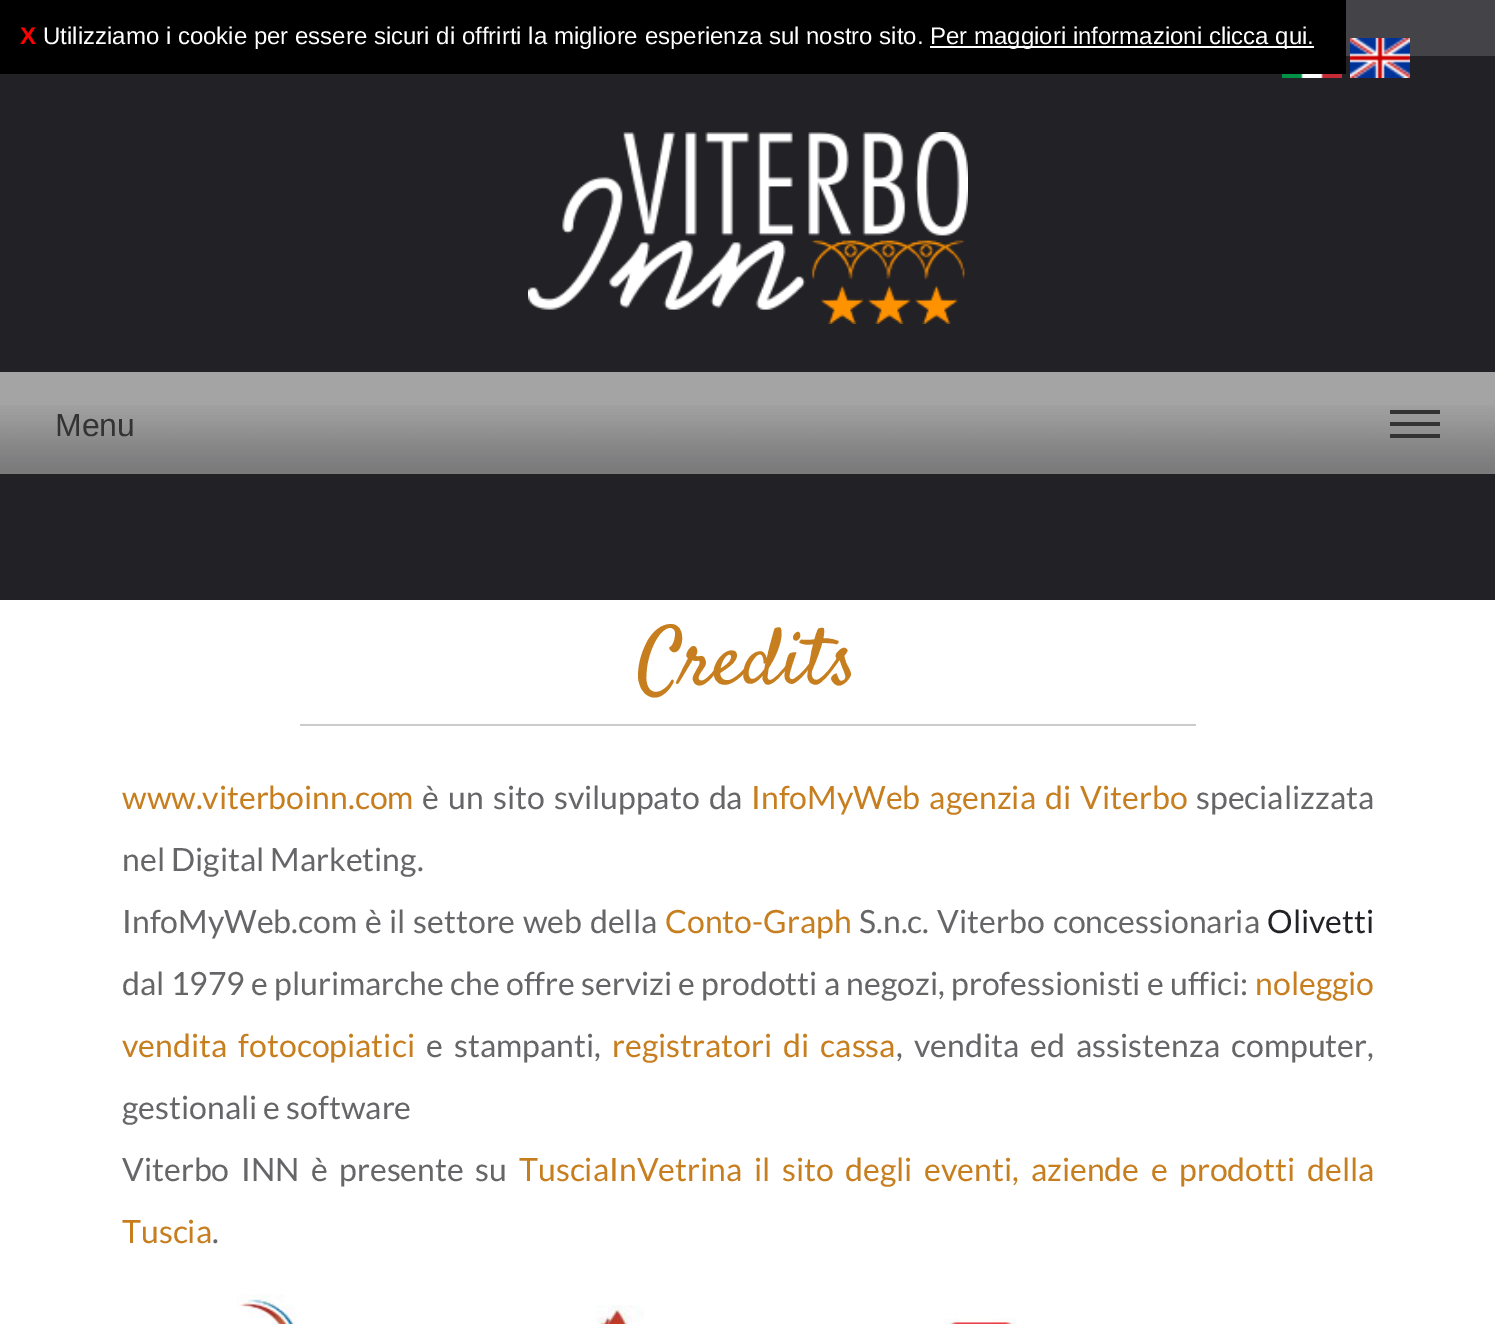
%!PS
<< /PageSize [1495 1324] >> setpagedevice
/m/moveto load def
/C { dup -16 bitshift 255 div exch dup -8 bitshift 255 and 255 div exch 255 and 255 div setrgbcolor } def
/F { [ exch dup neg 0 0 3 -1 roll 0 0 ] selectfont } def
/T { moveto show } def
/R { rectfill } def
/I { 5 dict begin { /h /w /y /x /name } { exch def } forall
  gsave x y translate w h scale
  w h 8 [w 0 0 h 0 0] name (r) file false 3 colorimage grestore end } def
0 1324 translate 1 -1 scale
4 setmiterlimit
16#FFFFFF C
0 0 1495 1324 R
16#222126 C
0 56 1495 544 R
16#000000 C
0 0 1346 74 R
/LiberationSans-Bold 24 F
16#FF0000 C
(X) 20 44 T
/LiberationSans-Regular 24 F
16#FFFFFF C
(Utilizziamo i cookie per essere sicuri di offrirti la migliore esperienza sul nostro sito.) 43 44 T
930 46 384 2 R
(Per maggiori informazioni clicca qui.) 930 44 T
16#444348 C
1346 0 149 56 R
(1.rgb) 1282 74 60 4 I
(2.rgb) 1350 38 60 40 I
(3.rgb) 528 132 440 192 I
16#A4A4A4 C
0 372 1495 102 R
(4.rgb) 0 405 1495 69 I
/LiberationSans-Regular 32 F
16#333333 C
(Menu) 55 436 T
1390 410 50 4 R
1390 422 50 4 R
1390 434 50 4 R
/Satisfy-Regular 80 F
16#C67E1E C
(Credits) 638 683 T
16#CCCCCC C
300 724 896 2 R
/Lato-Regular 32 F
16#C67E1E C
(www.viterboinn.com) 122 809 T
16#666669 C
422 809 m 3 0 32 (è un sito sviluppato da) widthshow
16#C67E1E C
751 809 m 3 0 32 (InfoMyWeb agenzia di Viterbo) widthshow
16#666669 C
(specializzata) 1196 809 T
(nel Digital Marketing.) 122 871 T
122 933 m 1.5 0 32 (InfoMyWeb.com è il settore web della) widthshow
16#C67E1E C
(Conto-Graph) 665 933 T
16#666669 C
859 933 m 2 0 32 (S.n.c. Viterbo concessionaria) widthshow
16#222126 C
(Olivetti) 1267 933 T
16#666669 C
122 995 m .1 0 32 (dal 1979 e plurimarche che offre servizi e prodotti a negozi,) widthshow
(professionisti e uffici:) 951 995 T
16#C67E1E C
(noleggio) 1255 995 T
122 1057 m 5 0 32 (vendita fotocopiatici) widthshow
16#666669 C
426 1057 m 5 0 32 (e stampanti,) widthshow
16#C67E1E C
612 1057 m 5 0 32 (registratori di cassa) widthshow
16#666669 C
(,) 896 1057 T
914 1057 m 5 0 32 (vendita ed assistenza computer,) widthshow
(gestionali e software) 122 1119 T
122 1181 m 5.5 0 32 (Viterbo INN è presente su) widthshow
16#C67E1E C
519 1181 m 5.5 0 32 (TusciaInVetrina il sito degli eventi, aziende e prodotti della) widthshow
(Tuscia) 122 1243 T
16#666669 C
(.) 212 1243 T
(5.rgb) 236 1294 60 30 I
(6.rgb) 596 1305 48 19 I
(7.rgb) 944 1318 73 6 I
showpage
